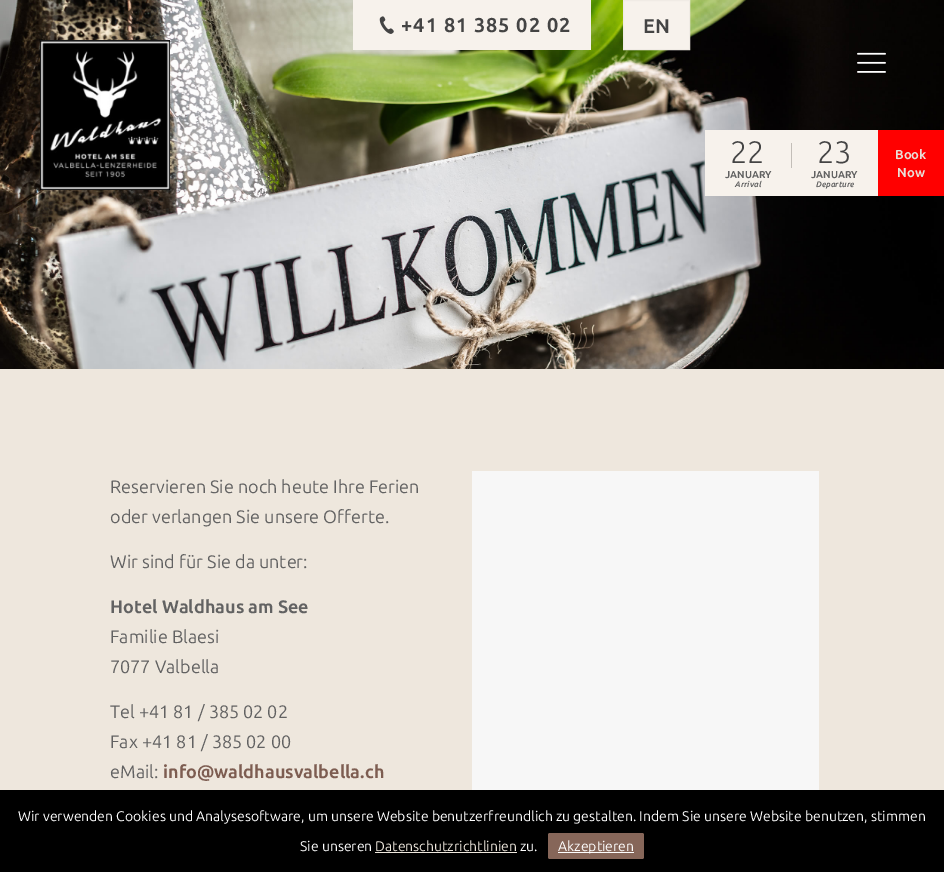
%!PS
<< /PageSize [944 872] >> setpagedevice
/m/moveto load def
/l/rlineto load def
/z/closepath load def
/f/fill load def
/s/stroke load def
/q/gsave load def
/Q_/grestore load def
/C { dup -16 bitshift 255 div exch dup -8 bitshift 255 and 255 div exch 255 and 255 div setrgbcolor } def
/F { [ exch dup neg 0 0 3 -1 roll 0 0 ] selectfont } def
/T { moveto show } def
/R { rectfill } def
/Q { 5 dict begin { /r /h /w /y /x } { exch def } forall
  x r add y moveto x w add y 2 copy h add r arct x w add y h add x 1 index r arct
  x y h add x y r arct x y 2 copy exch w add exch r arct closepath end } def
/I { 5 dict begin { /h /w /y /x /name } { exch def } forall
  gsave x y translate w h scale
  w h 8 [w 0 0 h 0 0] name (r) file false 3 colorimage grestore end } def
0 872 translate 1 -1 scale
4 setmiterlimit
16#EEE7DD C
0 0 944 872 R
(1.rgb) 0 0 944 369 I
16#F7F2EC C
353 0 238 50 R
(2.rgb) 379 16 15 18 I
/Ubuntu-Bold 20 F
16#444444 C
401 32 m 1 0 (+41 81 385 02 02) ashow
16#F7F2EC C
623.5 .5 m 66 0 l 0 49 l -66 0 l z q f Q_
16#F0EBE5 C
s
16#444444 C
(EN) 643 33 T
(3.rgb) 40 40 130 150 I
(4.rgb) 857 52 29 21 I
16#FF0000 C
878 130 66 66 R
16#F7F2EC C
705 130 173 66 R
/Ubuntu-Light 31 F
16#444444 C
(22) 730 163 T
/Ubuntu-Bold 10 F
16#626262 C
(JANUARY) 725 178 T
/Ubuntu-BoldItalic 8 F
(Arrival) 735 187 T
16#C3BEB8 C
791 143 1 25 R
/Ubuntu-Light 31 F
16#444444 C
(23) 817 163 T
/Ubuntu-Bold 10 F
16#626262 C
(JANUARY) 811 178 T
/Ubuntu-BoldItalic 8 F
(Departure) 816 187 T
/Ubuntu-Bold 13 F
16#E9DFD8 C
(Book) 895 159 T
(Now) 897 177 T
/Ubuntu-Regular 18 F
16#626262 C
(Reservieren Sie noch heute Ihre Ferien) 110 493 T
(oder verlangen Sie unsere Offerte.) 110 523 T
(Wir sind für Sie da unter:) 110 568 T
/Ubuntu-Bold 18 F
(Hotel Waldhaus am See) 110 613 T
/Ubuntu-Regular 18 F
(Familie Blaesi) 110 643 T
(7077 Valbella) 110 673 T
(Tel +41 81 / 385 02 02) 110 718 T
(Fax +41 81 / 385 02 00) 110 748 T
(eMail:) 110 778 T
/Ubuntu-Bold 18 F
16#7D5D51 C
(info@waldhausvalbella.ch) 163 778 T
16#F7F7F7 C
472 471 347 319 R
16#000000 C
0 790 944 82 R
/Ubuntu-Regular 14 F
16#FFFFFF C
(Wir verwenden Cookies und Analysesoftware, um unsere Website benutzerfreundlich zu gestalten. Indem Sie unsere Website benutzen, stimmen) 18 821 T
(Sie unseren) 300 851 T
16#EEE7DD C
(Datenschutzrichtlinien) 375 851 T
375 852 142 1 R
16#FFFFFF C
(zu.) 520 851 T
16#866659 C
548 833 96 26 2 Q f
16#FFFFFF C
558 852 76 1 R
(Akzeptieren) 558 851 T
showpage
